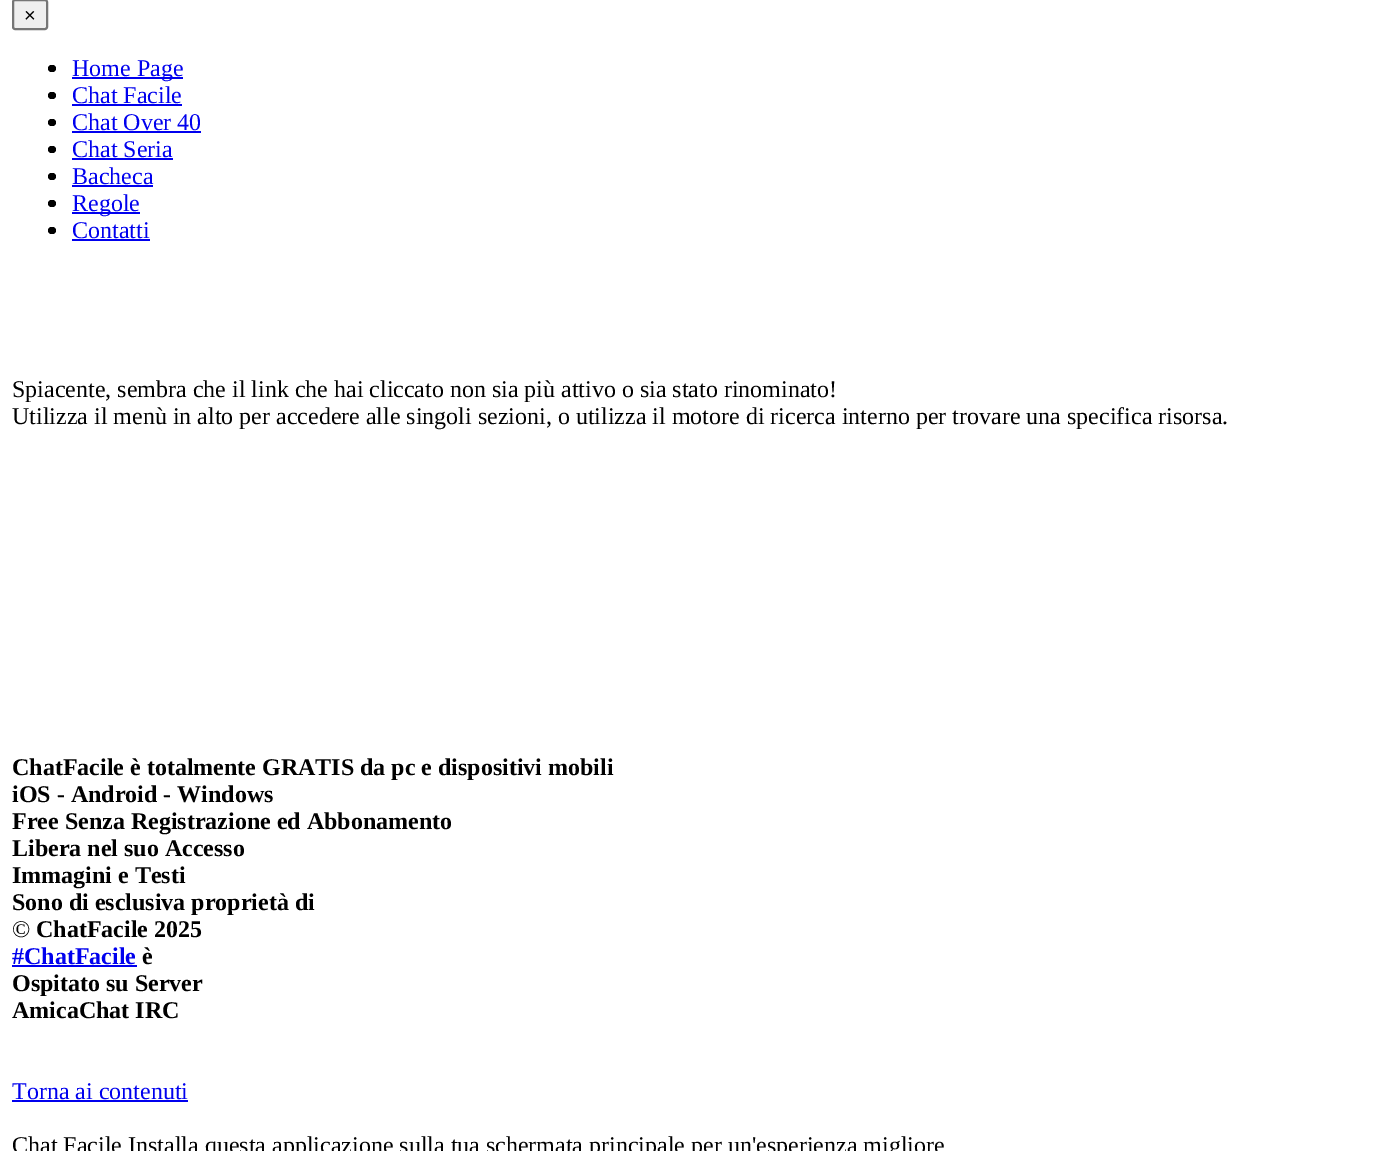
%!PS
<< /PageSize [1373 1151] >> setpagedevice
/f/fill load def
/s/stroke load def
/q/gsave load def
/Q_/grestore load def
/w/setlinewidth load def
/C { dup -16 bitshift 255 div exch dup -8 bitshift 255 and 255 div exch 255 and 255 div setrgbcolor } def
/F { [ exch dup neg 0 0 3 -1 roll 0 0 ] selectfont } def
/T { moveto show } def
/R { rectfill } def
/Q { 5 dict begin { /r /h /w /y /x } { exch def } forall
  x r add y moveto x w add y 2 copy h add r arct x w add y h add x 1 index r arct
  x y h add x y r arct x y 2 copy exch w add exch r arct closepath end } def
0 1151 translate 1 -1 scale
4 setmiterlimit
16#FFFFFF C
0 0 1373 1151 R
16#EFEFEF C
13 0 34 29 2 Q q f Q_
16#767676 C
2 w
s
/LiberationSans-Regular 20 F
16#000000 C
(×) 24 22 T
48 65 8 7 3.5 Q f
16#0000EE C
72 77 111 2 R
/LiberationSerif-Regular 24 F
(Home Page) 72 76 T
16#000000 C
48 92 8 7 3.5 Q f
16#0000EE C
(Chat Facile) 72 103 T
72 104 110 2 R
16#000000 C
48 119 8 7 3.5 Q f
16#0000EE C
(Chat Over 40) 72 130 T
72 131 129 2 R
16#000000 C
48 146 8 7 3.5 Q f
16#0000EE C
(Chat Seria) 72 157 T
72 158 101 2 R
16#000000 C
48 173 8 7 3.5 Q f
16#0000EE C
(Bacheca) 72 184 T
72 185 81 2 R
16#000000 C
48 200 8 7 3.5 Q f
16#0000EE C
72 212 68 2 R
(Regole) 72 211 T
16#000000 C
48 227 8 7 3.5 Q f
16#0000EE C
(Contatti) 72 238 T
72 239 78 2 R
16#000000 C
(Spiacente, sembra che il link che hai cliccato non sia più attivo o sia stato rinominato!) 12 397 T
(Utilizza il menù in alto per accedere alle singoli sezioni, o utilizza il motore di ricerca interno per trovare una specifica risorsa.) 12 424 T
/LiberationSerif-Bold 24 F
(ChatFacile è totalmente GRATIS da pc e dispositivi mobili) 12 775 T
(iOS - Android - Windows) 12 802 T
(Free Senza Registrazione ed Abbonamento) 12 829 T
(Libera nel suo Accesso) 12 856 T
(Immagini e Testi) 12 883 T
(Sono di esclusiva proprietà di) 12 910 T
/LiberationSerif-Regular 24 F
(©) 12 937 T
/LiberationSerif-Bold 24 F
(ChatFacile 2025) 36 937 T
16#0000EE C
(#ChatFacile) 12 964 T
12 965 125 2 R
16#000000 C
(è) 142 964 T
(Ospitato su Server) 12 991 T
(AmicaChat IRC) 12 1018 T
/LiberationSerif-Regular 24 F
16#0000EE C
(Torna ai contenuti) 12 1099 T
12 1100 176 2 R
16#000000 C
(Chat Facile Installa questa applicazione sulla tua schermata principale per un'esperienza migliore) 12 1153 T
showpage
